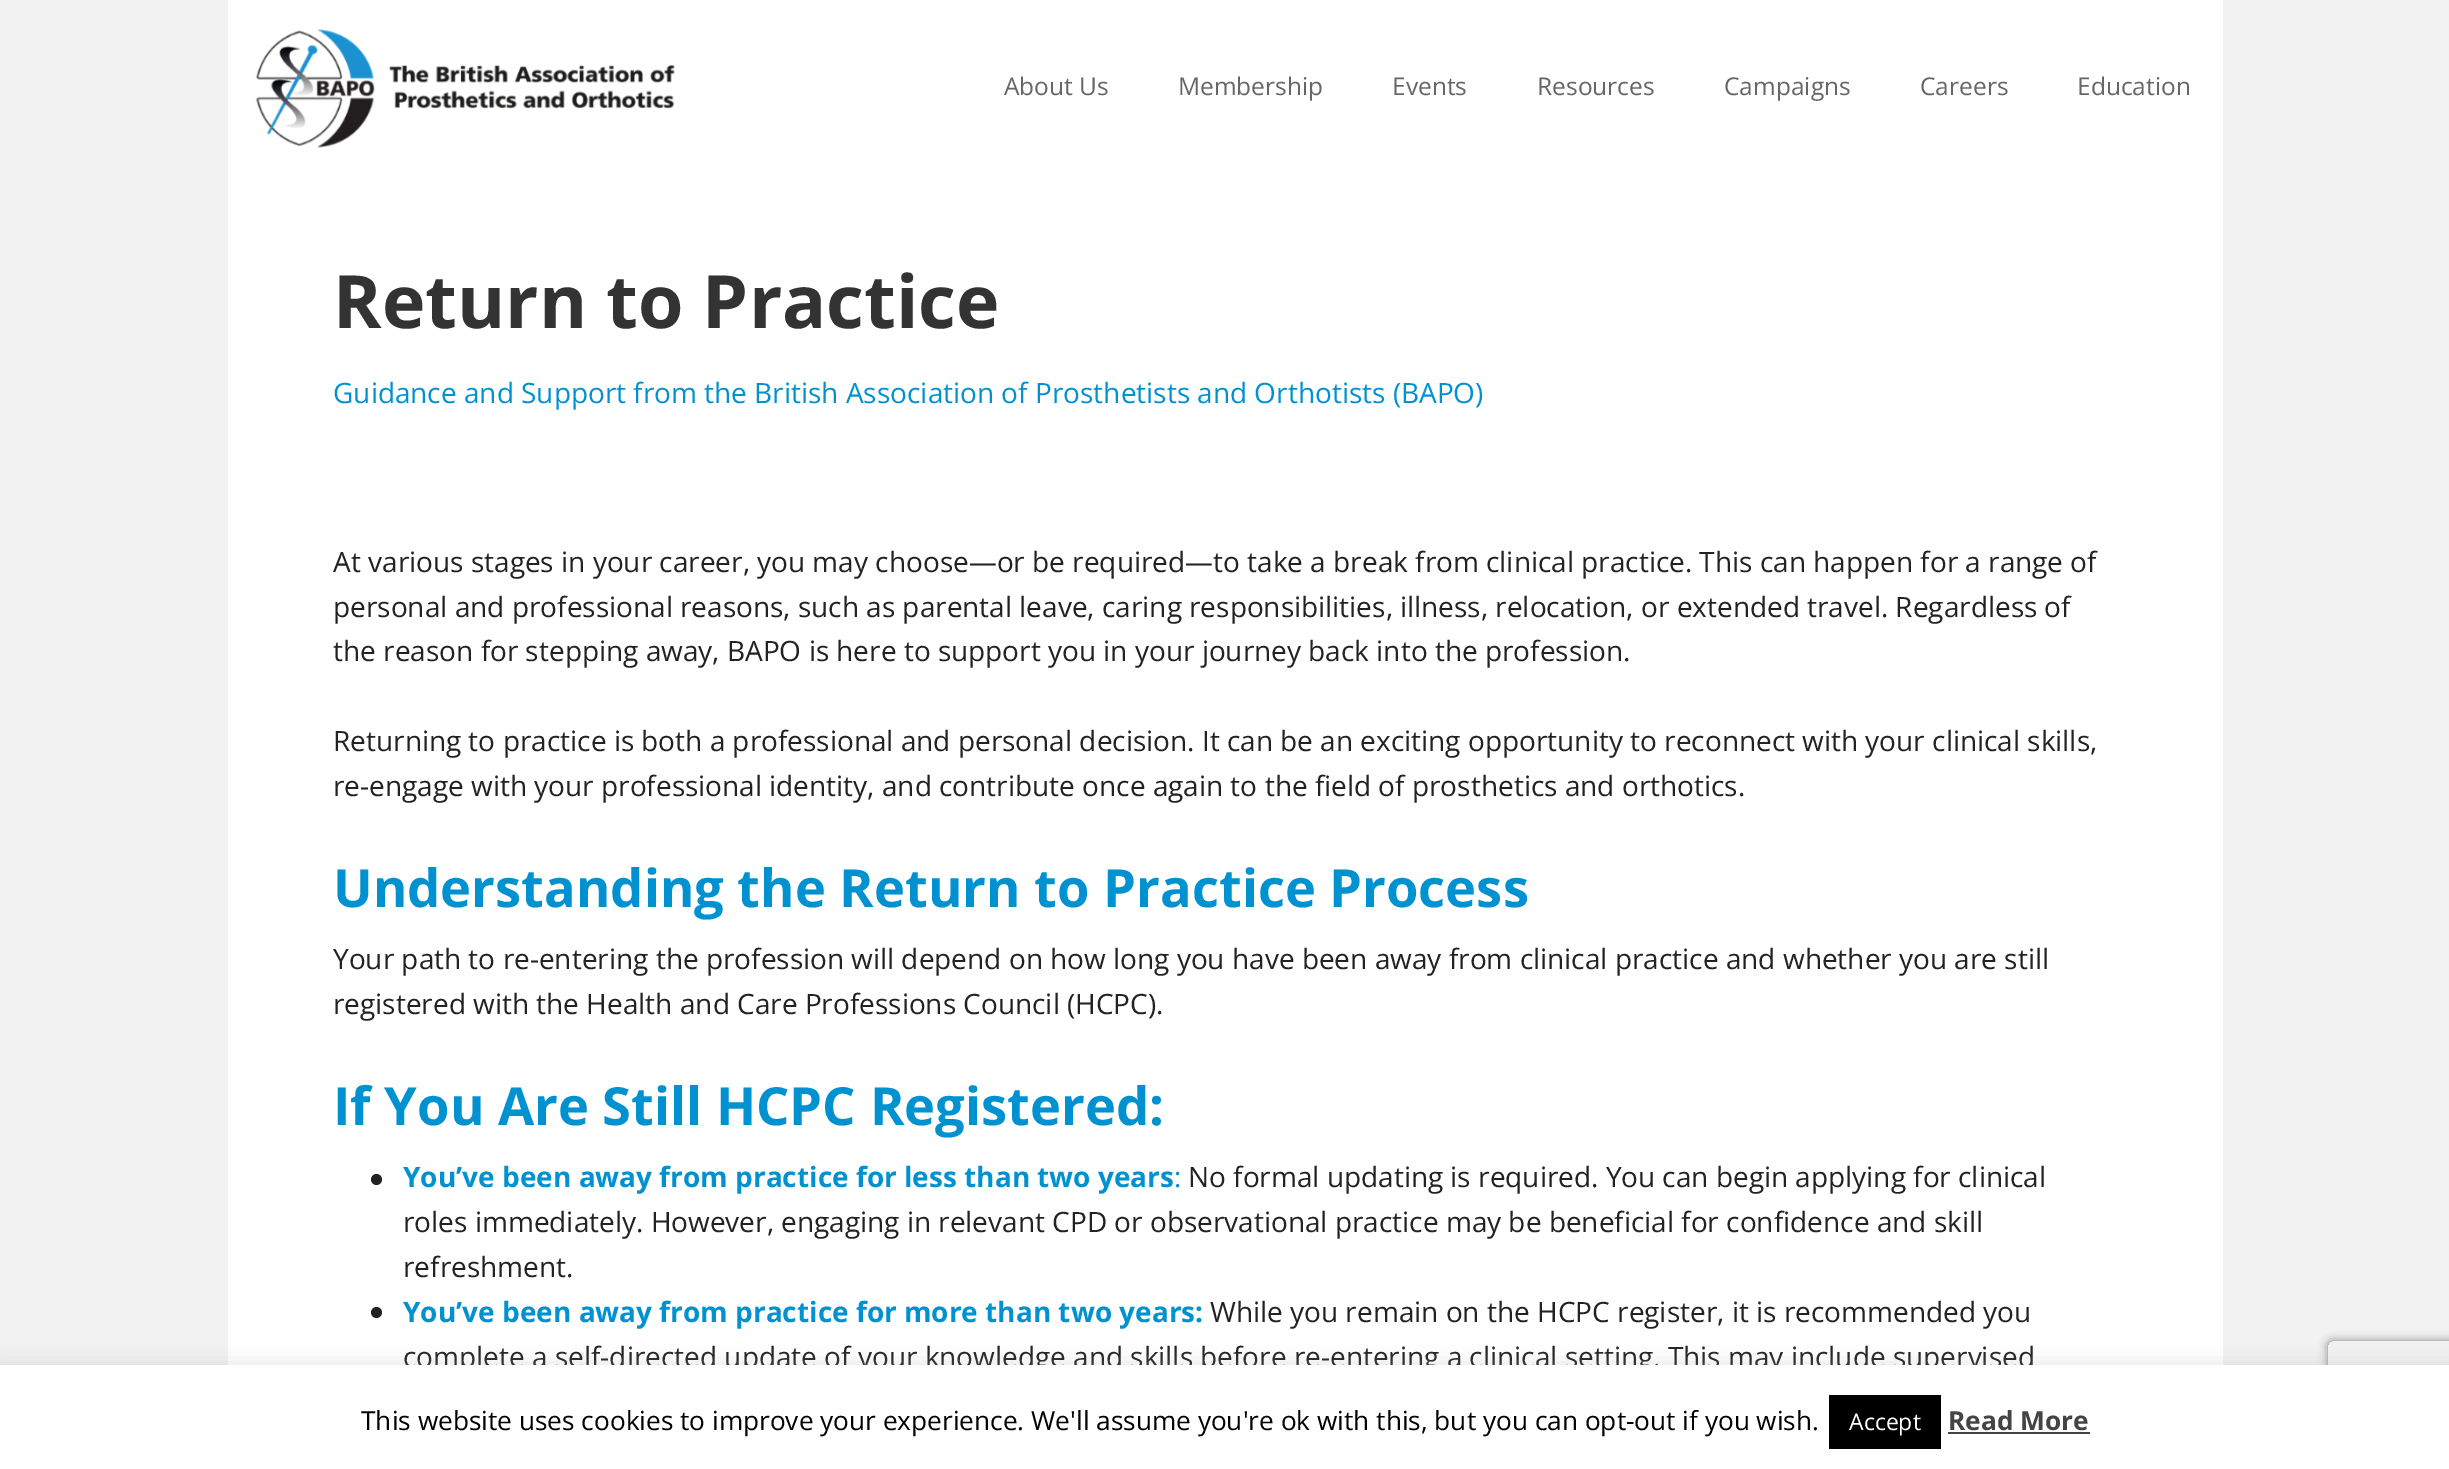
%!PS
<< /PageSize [2449 1469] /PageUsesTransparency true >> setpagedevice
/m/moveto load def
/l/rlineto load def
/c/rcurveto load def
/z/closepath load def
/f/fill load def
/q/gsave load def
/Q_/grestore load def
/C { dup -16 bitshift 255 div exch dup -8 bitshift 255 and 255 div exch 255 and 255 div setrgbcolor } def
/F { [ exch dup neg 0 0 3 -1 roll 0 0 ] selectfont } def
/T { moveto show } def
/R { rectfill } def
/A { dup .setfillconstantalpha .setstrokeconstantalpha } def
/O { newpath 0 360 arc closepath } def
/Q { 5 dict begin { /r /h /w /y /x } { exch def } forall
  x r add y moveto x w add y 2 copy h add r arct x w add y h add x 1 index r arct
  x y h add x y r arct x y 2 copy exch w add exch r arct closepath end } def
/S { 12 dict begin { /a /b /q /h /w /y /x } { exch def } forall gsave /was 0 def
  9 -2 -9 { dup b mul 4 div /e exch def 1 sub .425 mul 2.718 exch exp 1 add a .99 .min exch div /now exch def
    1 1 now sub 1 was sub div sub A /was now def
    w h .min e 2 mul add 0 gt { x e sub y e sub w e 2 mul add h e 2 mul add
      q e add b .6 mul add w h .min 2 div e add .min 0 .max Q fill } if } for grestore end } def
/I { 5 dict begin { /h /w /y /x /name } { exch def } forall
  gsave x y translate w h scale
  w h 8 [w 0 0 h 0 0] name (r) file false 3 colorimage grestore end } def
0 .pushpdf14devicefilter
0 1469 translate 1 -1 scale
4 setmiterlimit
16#F2F2F2 C
0 0 2449 1469 R
16#FFFFFF C
228 0 1995 1365 R
(1.rgb) 255 29 420 119 I
/OpenSans-Regular 24.5 F
16#666666 C
(About Us) 1004 95 T
(Membership) 1178 95 T
(Events) 1392 95 T
(Resources) 1537 95 T
(Campaigns) 1724 95 T
(Careers) 1920 95 T
(Education) 2077 95 T
/OpenSans-Bold 73.5 F
16#333333 C
(Return to Practice) 333 328 T
/OpenSans-Regular 28 F
16#0091D0 C
(Guidance and Support from the British Association of Prosthetists and Orthotists \(BAPO\)) 333 403 T
16#222222 C
(At various stages in your career, you may choose—or be required—to take a break from clinical practice. This can happen for a range of) 333 572 T
(personal and professional reasons, such as parental leave, caring responsibilities, illness, relocation, or extended travel. Regardless of) 333 617 T
(the reason for stepping away, BAPO is here to support you in your journey back into the profession.) 333 661 T
(Returning to practice is both a professional and personal decision. It can be an exciting opportunity to reconnect with your clinical skills,) 333 751 T
(re-engage with your professional identity, and contribute once again to the field of prosthetics and orthotics.) 333 796 T
/OpenSans-Bold 52.5 F
16#0091D0 C
(Understanding the Return to Practice Process) 333 907 T
/OpenSans-Regular 28 F
16#222222 C
(Your path to re-entering the profession will depend on how long you have been away from clinical practice and whether you are still) 333 969 T
(registered with the Health and Care Professions Council \(HCPC\).) 333 1014 T
/OpenSans-Bold 52.5 F
16#0091D0 C
(If You Are Still HCPC Registered:) 333 1125 T
16#222222 C
376.5 1179.5 5.5 O f
/OpenSans-Bold 28 F
16#0091D0 C
(You’ve been away from practice for less than two years) 403 1187 T
/OpenSans-Regular 28 F
(:) 1174 1187 T
16#222222 C
(No formal updating is required. You can begin applying for clinical) 1188 1187 T
(roles immediately. However, engaging in relevant CPD or observational practice may be beneficial for confidence and skill) 403 1232 T
(refreshment.) 403 1277 T
376.5 1312.5 5.5 O f
/OpenSans-Bold 28 F
16#0091D0 C
(You’ve been away from practice for more than two years:) 403 1322 T
/OpenSans-Regular 28 F
16#222222 C
(While you remain on the HCPC register, it is recommended you) 1210 1322 T
(complete a self-directed update of your knowledge and skills before re-entering a clinical setting. This may include supervised) 403 1367 T
16#ACABAB C
0 1363 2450 105 0 9 .3 S
q
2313 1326 m 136 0 l 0 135 l -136 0 l z 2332 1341 m 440 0 l 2 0 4 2 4 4 c 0 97 l 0 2 -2 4 -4 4 c -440 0 l -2 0 -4 -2 -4 -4 c 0 -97 l 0 -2 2 -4 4 -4 c z eoclip newpath
16#808080 C
2328 1341 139 105 4 4.5 1 S
Q_
16#FFFFFF C
0 1365 2449 104 R
/OpenSans-Regular 26.25 F
16#000000 C
(This website uses cookies to improve your experience. We'll assume you're ok with this, but you can opt-out if you wish.) 361 1430 T
1829 1395 112 54 R
/OpenSans-Regular 23 F
16#FFFFFF C
(Accept) 1849 1430 T
/OpenSans-Bold 26.25 F
16#444444 C
(Read More) 1948 1430 T
1948 1432 142 2 R
.poppdf14devicefilter showpage
